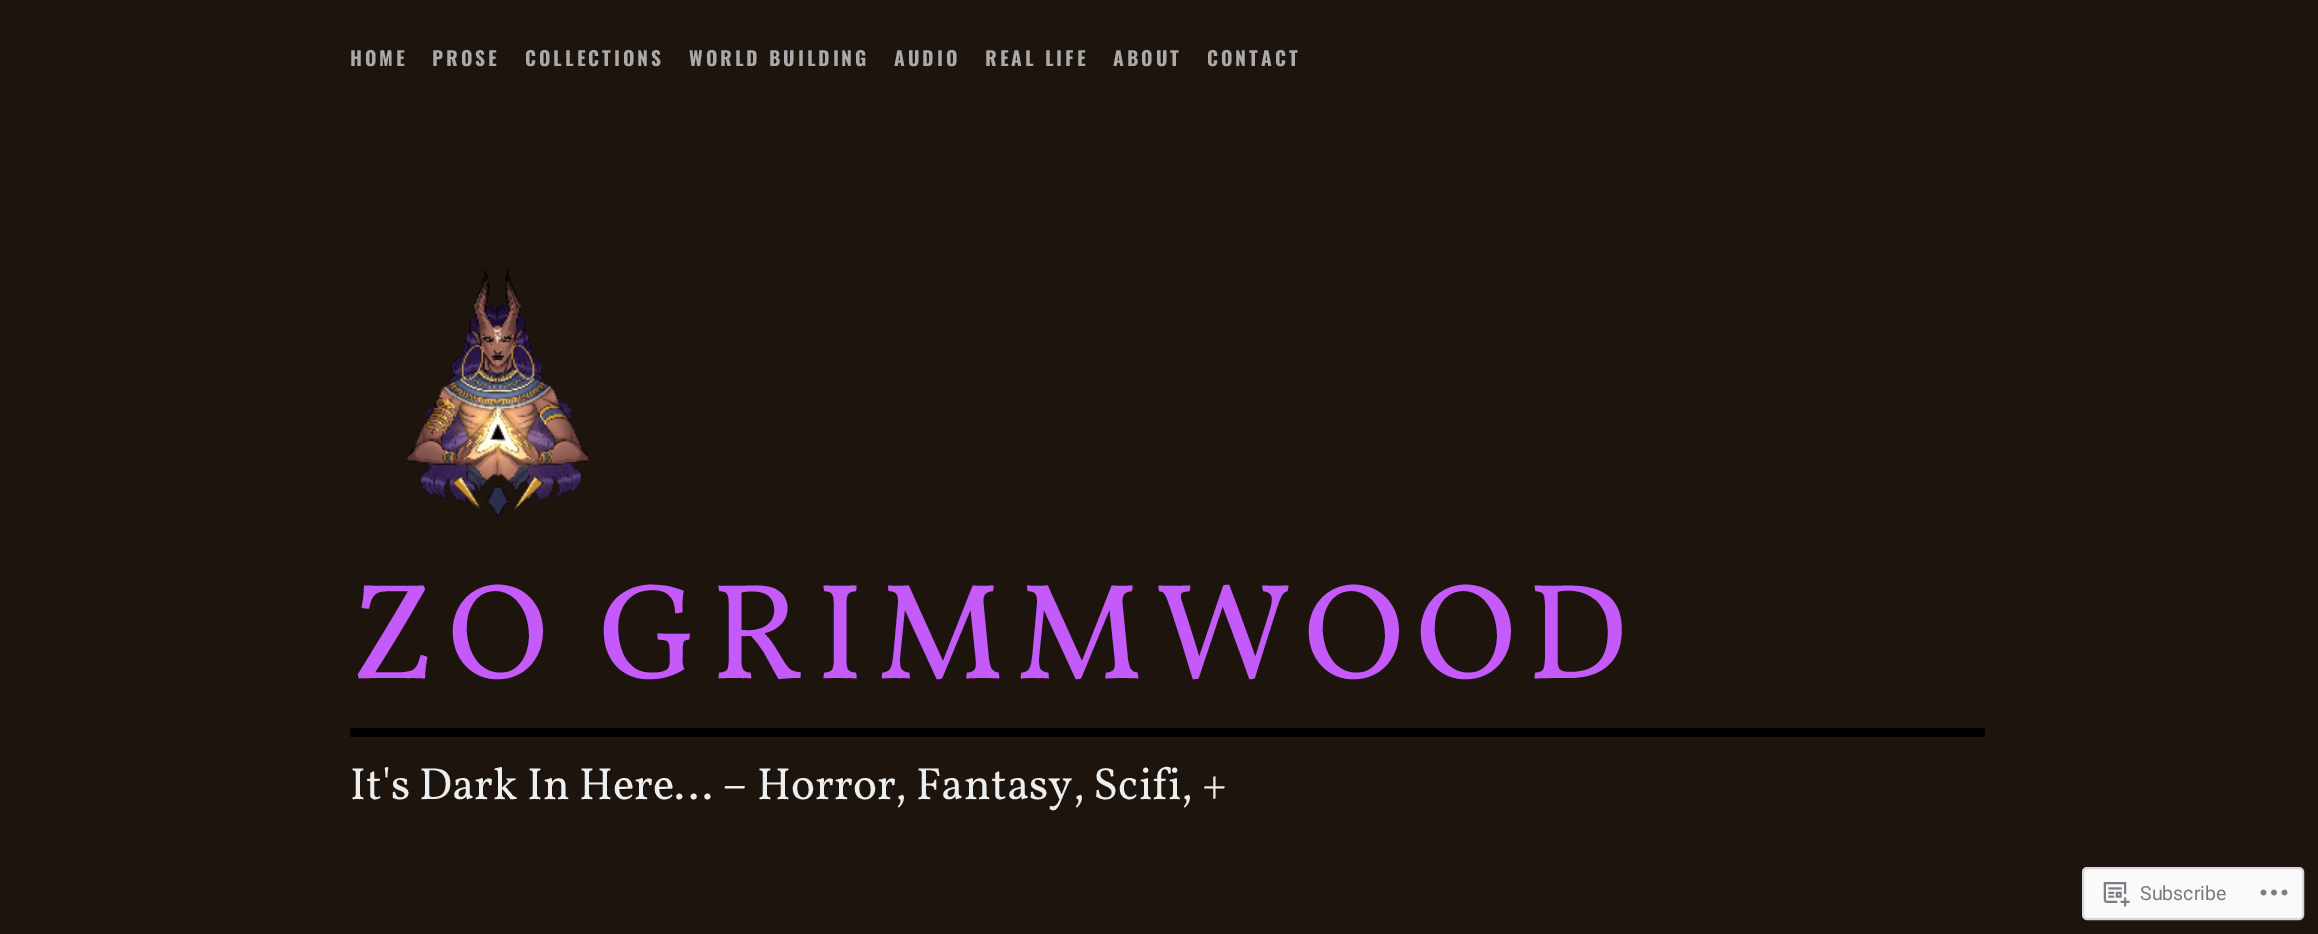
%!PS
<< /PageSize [2318 934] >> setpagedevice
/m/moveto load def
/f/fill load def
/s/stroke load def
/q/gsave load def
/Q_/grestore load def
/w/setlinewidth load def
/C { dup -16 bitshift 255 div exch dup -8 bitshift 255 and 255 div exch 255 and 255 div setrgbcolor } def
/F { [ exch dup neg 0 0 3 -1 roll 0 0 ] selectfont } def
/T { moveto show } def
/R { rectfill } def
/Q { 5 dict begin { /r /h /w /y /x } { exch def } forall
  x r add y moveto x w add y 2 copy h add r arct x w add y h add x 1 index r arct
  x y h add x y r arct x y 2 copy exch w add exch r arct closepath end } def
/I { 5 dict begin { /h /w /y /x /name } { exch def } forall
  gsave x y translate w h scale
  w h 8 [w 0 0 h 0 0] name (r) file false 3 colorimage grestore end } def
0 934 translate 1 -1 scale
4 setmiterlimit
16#1C140D C
0 0 2318 934 R
/Oswald-Bold 19.5 F
16#AAAAAA C
350 66 m 3 0 (HOME) ashow
432 66 m 3 0 (PROSE) ashow
525 66 m 3 0 (COLLECTIONS) ashow
689 66 m 3 0 (WORLD BUILDING) ashow
894 66 m 3 0 (AUDIO) ashow
985 66 m 3 0 (REAL LIFE) ashow
1113 66 m 3 0 (ABOUT) ashow
1207 66 m 3 0 (CONTACT) ashow
(1.rgb) 406 270 184 247 I
/Vollkorn-Regular 136.5 F
16#C55AFA C
350 678 m 12 0 (ZO GRIMMWOOD) ashow
16#010100 C
350 728 1635 9 R
/Vollkorn-Regular 45.1 F
16#EEEEEE C
(It's Dark In Here… – Horror, Fantasy, Scifi, +) 350 799 T
16#FAFAFA C
2083 868 220 51 4 Q q f Q_
16#D8D8DA C
2 w
s
(2.rgb) 2103 882 27 25 I
/Roboto-Regular 19.5 F
16#767A80 C
(Subscribe) 2140 900 T
(3.rgb) 2260 889 28 7 I
showpage
